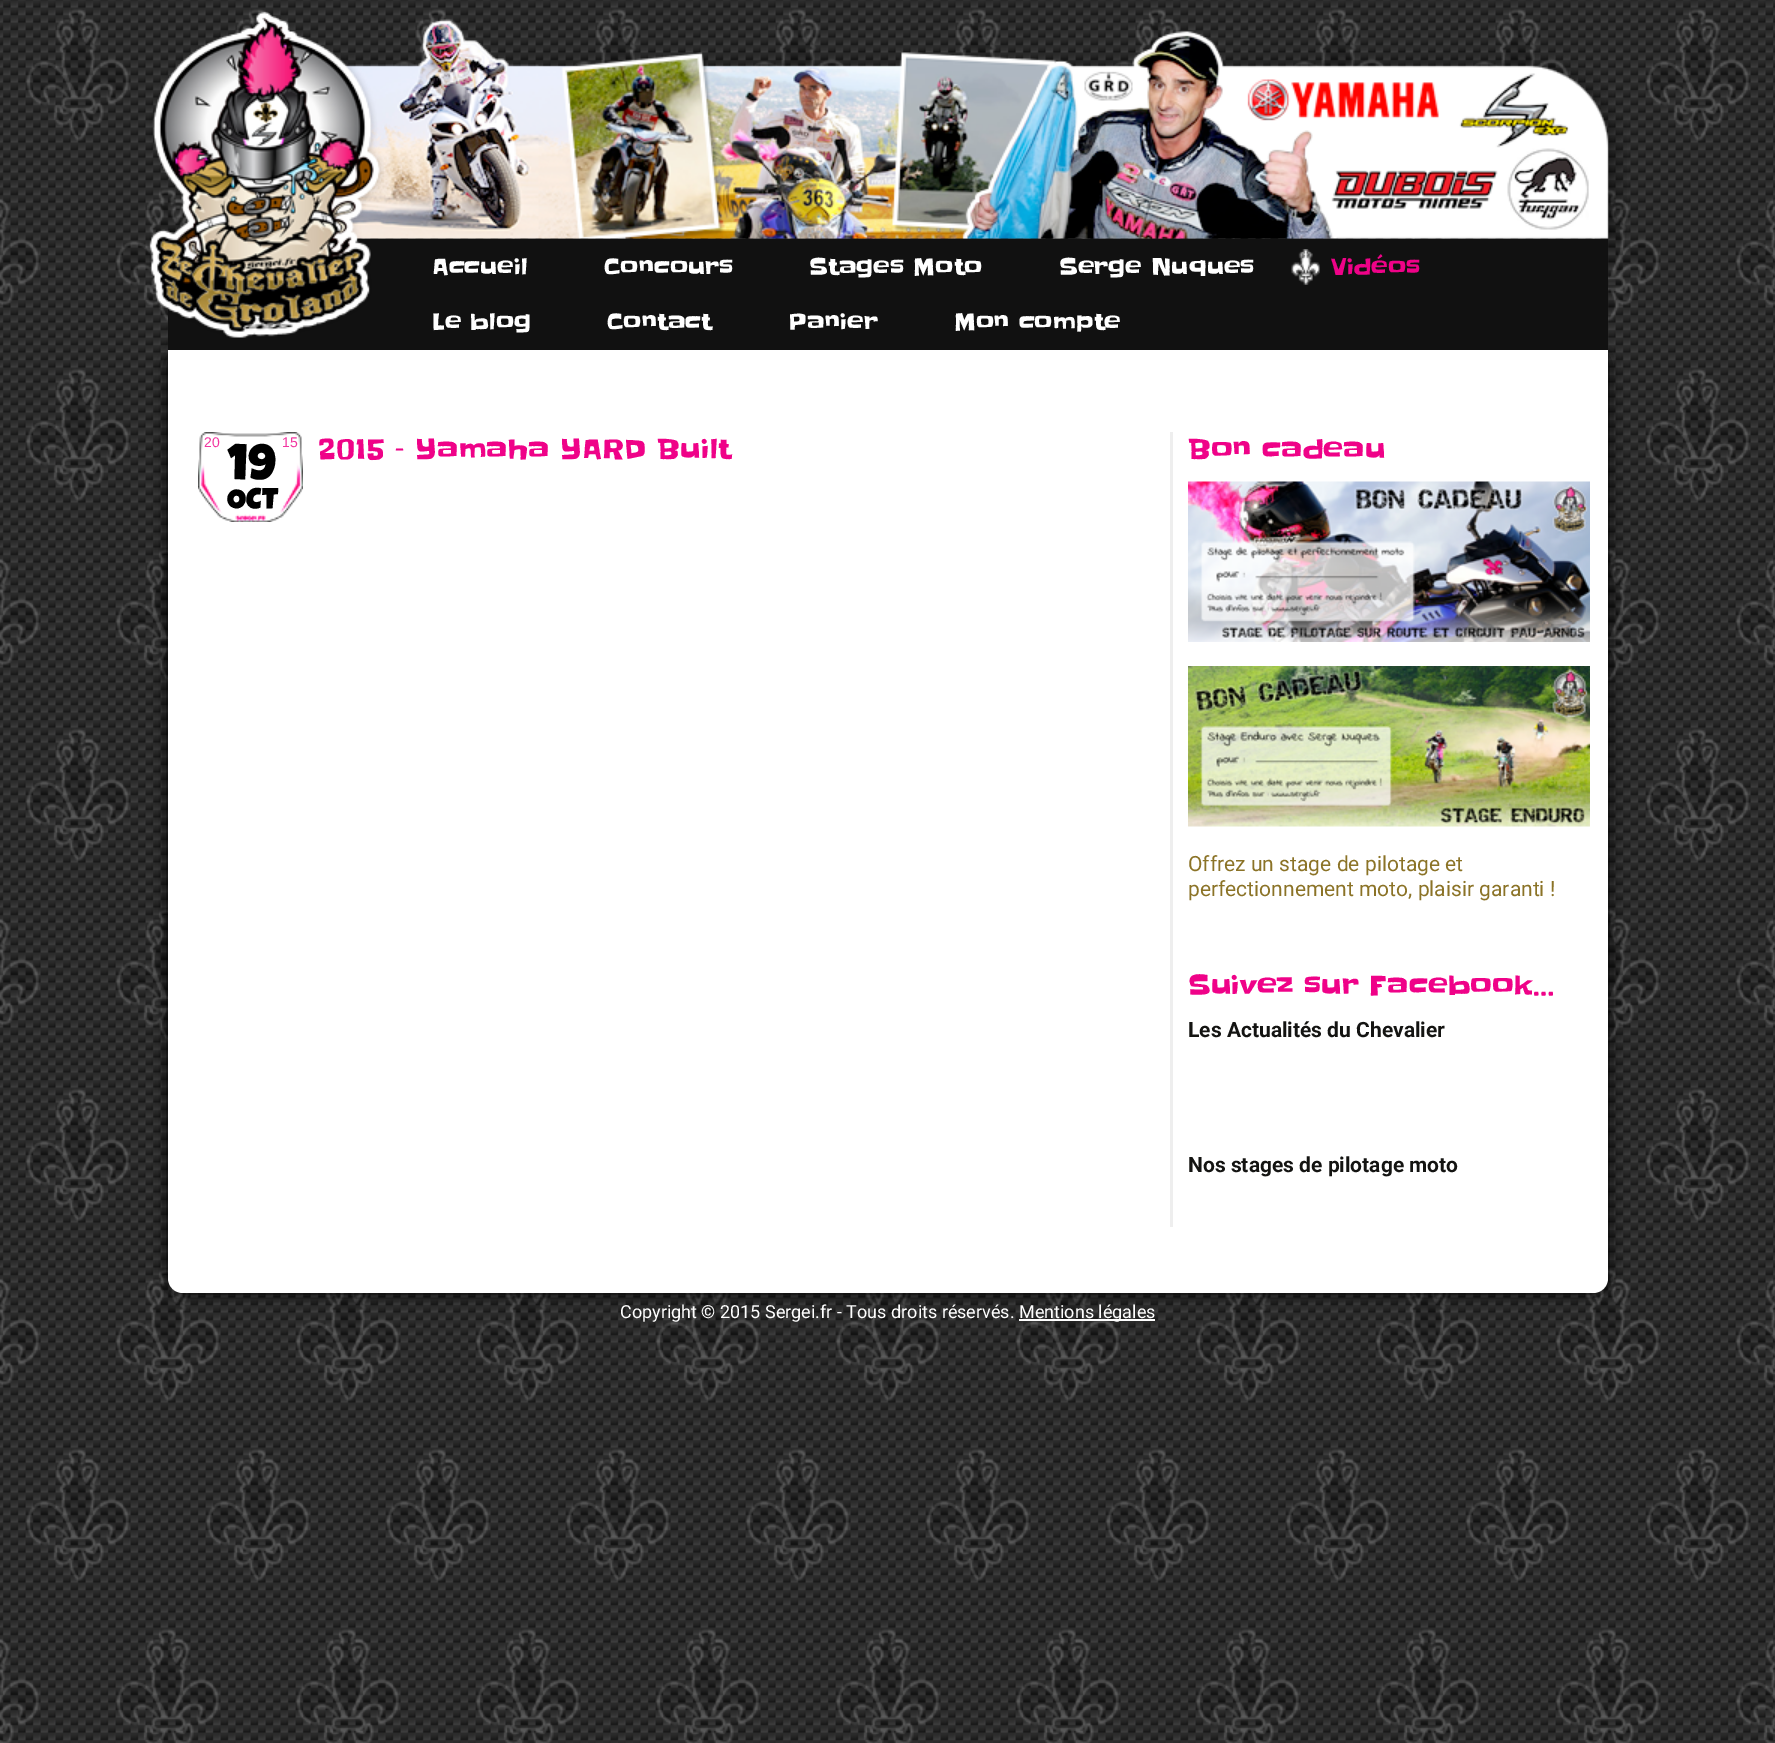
%!PS
<< /PageSize [1775 1743] /PageUsesTransparency true >> setpagedevice
/m/moveto load def
/l/rlineto load def
/c/rcurveto load def
/z/closepath load def
/f/fill load def
/C { dup -16 bitshift 255 div exch dup -8 bitshift 255 and 255 div exch 255 and 255 div setrgbcolor } def
/F { [ exch dup neg 0 0 3 -1 roll 0 0 ] selectfont } def
/T { moveto show } def
/R { rectfill } def
/A { dup .setfillconstantalpha .setstrokeconstantalpha } def
/Q { 5 dict begin { /r /h /w /y /x } { exch def } forall
  x r add y moveto x w add y 2 copy h add r arct x w add y h add x 1 index r arct
  x y h add x y r arct x y 2 copy exch w add exch r arct closepath end } def
/S { 12 dict begin { /a /b /q /h /w /y /x } { exch def } forall gsave /was 0 def
  9 -2 -9 { dup b mul 4 div /e exch def 1 sub .425 mul 2.718 exch exp 1 add a .99 .min exch div /now exch def
    1 1 now sub 1 was sub div sub A /was now def
    w h .min e 2 mul add 0 gt { x e sub y e sub w e 2 mul add h e 2 mul add
      q e add b .6 mul add w h .min 2 div e add .min 0 .max Q fill } if } for grestore end } def
/I { 5 dict begin { /h /w /y /x /name } { exch def } forall
  gsave x y translate w h scale
  w h 8 [w 0 0 h 0 0] name (r) file false 3 colorimage grestore end } def
0 .pushpdf14devicefilter
0 1743 translate 1 -1 scale
4 setmiterlimit
16#FFFFFF C
0 0 1775 1743 R
(1.rgb) 0 0 1775 1743 I
(3.rgb) 340 19 1287 220 I
16#000000 C
168 350 1440 943 15 7.5 1 S
16#111111 C
168 239 1440 111 R
(2.rgb) 149 11 235 327 I
/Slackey-Regular 22.5 F
16#FFFFFF C
(Accueil) 432 275 T
(Concours) 604 275 T
(Stages Moto) 809 275 T
(Serge Nuques) 1059 275 T
(4.rgb) 1291 249 29 36 I
16#EF0288 C
(Vidéos) 1331 275 T
16#FFFFFF C
(Le blog) 432 330 T
(Contact) 607 330 T
(Panier) 788 330 T
(Mon compte) 954 330 T
168 350 m 1440 0 l 0 928 l 0 8.5 -6.5 15 -15 15 c -1410 0 l -8.5 0 -15 -6.5 -15 -15 c z f
(5.rgb) 198 432 105 90 I
/LiberationSans-Regular 14 F
16#F235A0 C
(20) 204 447 T
/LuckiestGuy-Regular 51 F
16#000000 C
(19) 228 480 T
/LiberationSans-Regular 14 F
16#F235A0 C
(15) 282 447 T
/LuckiestGuy-Regular 30 F
16#000000 C
(OCT) 227 509 T
/Slackey-Regular 27 F
16#EF0288 C
(2015 – Yamaha YARD Built) 318 459 T
16#EEEEEE C
1170 432 3 795 R
16#EF0288 C
(Bon cadeau) 1188 459 T
(6.rgb) 1188 481 402 161 I
(7.rgb) 1188 666 402 161 I
/Roboto-Regular 21 F
16#8B7327 C
(Offrez un stage de pilotage et) 1188 871 T
(perfectionnement moto, plaisir garanti !) 1188 896 T
/Slackey-Regular 27 F
16#EF0288 C
(Suivez sur Facebook…) 1188 995 T
/Roboto-Bold 21 F
16#141412 C
(Les Actualités du Chevalier) 1188 1037 T
(Nos stages de pilotage moto) 1188 1172 T
/Roboto-Regular 18 F
16#FFFFFF C
(Copyright © 2015 Sergei.fr - Tous droits réservés.) 620 1318 T
1019 1319 136 2 R
(Mentions légales) 1019 1318 T
.poppdf14devicefilter showpage
